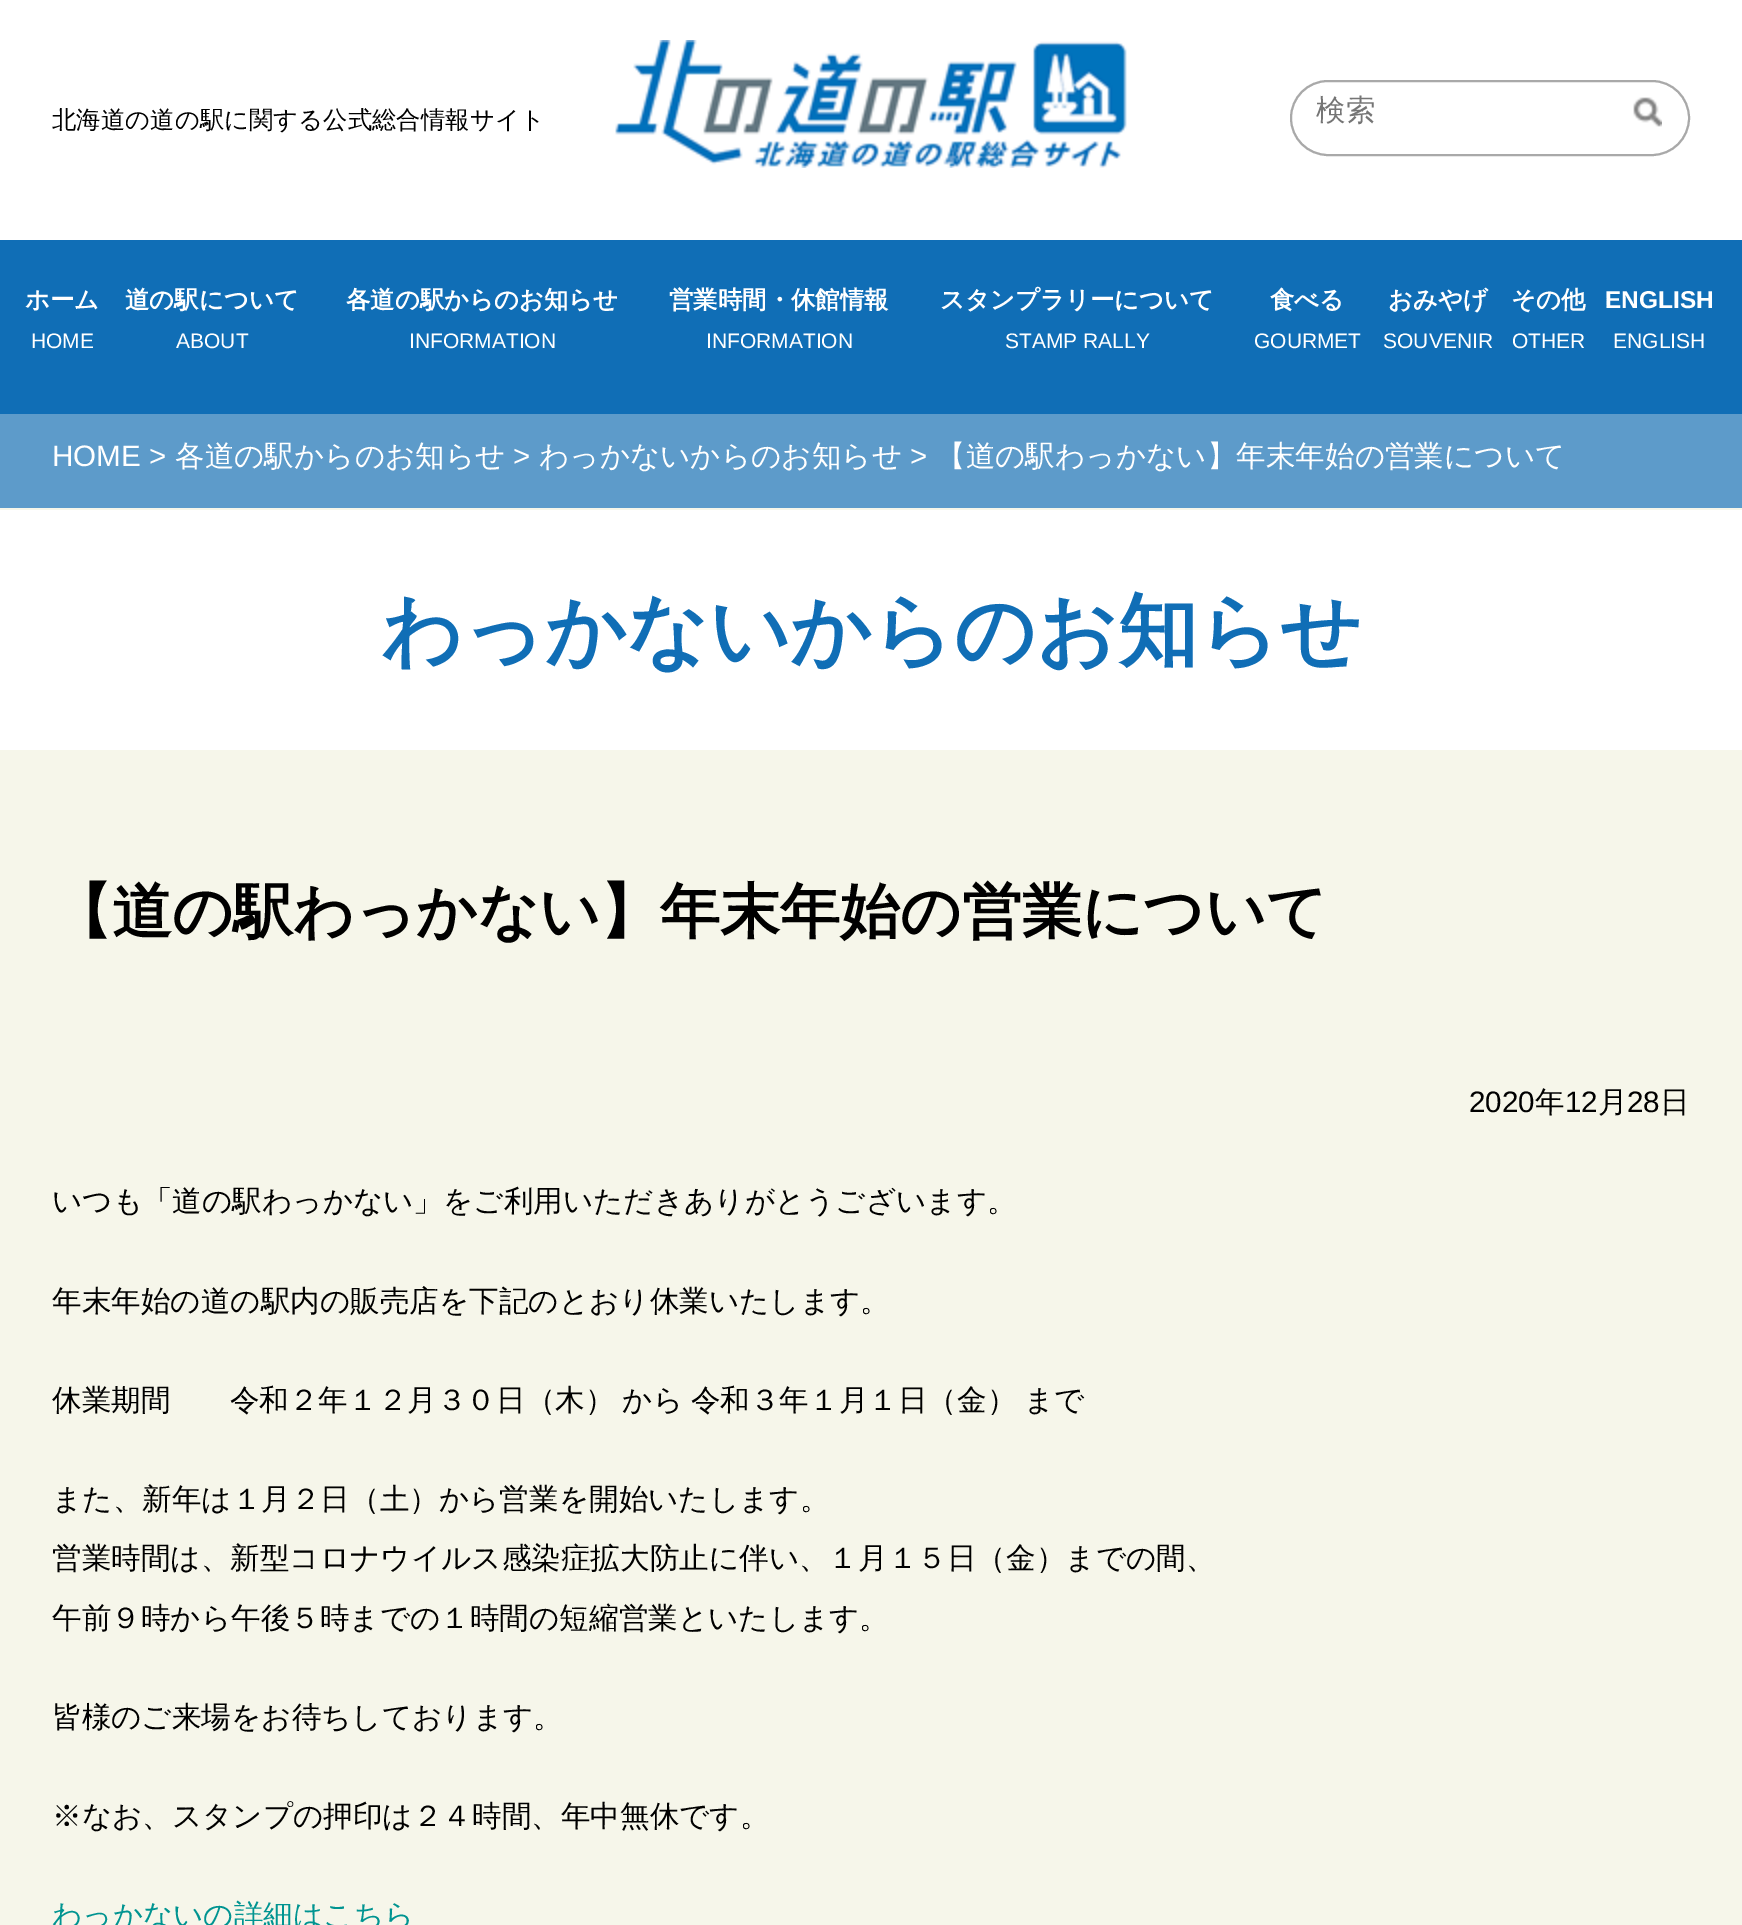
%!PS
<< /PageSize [1742 1925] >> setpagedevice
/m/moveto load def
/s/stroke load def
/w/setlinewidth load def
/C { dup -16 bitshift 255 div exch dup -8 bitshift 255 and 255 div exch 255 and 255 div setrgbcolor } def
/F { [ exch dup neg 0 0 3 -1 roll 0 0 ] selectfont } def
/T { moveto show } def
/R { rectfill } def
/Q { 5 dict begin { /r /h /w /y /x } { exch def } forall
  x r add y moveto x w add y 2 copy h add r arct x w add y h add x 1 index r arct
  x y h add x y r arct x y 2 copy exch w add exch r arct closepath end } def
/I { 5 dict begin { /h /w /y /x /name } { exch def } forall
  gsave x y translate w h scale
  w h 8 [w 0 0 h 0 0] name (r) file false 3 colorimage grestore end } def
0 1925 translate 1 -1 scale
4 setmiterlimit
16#F6F6EA C
0 0 1742 1925 R
16#FFFFFF C
0 0 1742 240 R
/WenQuanYiZenHei-Medium 24.4 F
16#000000 C
(北海道の道の駅に関する公式総合情報サイト) 52 128 T
(1.rgb) 615 40 512 128 I
16#A9A9A9 C
2 w
1291 81 398 74 37 Q s
/WenQuanYiZenHei-Medium 29.6 F
16#757575 C
(検索) 1316 120 T
(2.rgb) 1633 97 29 30 I
16#106EB6 C
0 240 1742 174 R
/WenQuanYiZenHei-Bold 24.4 F
16#FFFFFF C
(ホーム) 25 308 T
/LiberationSans-Regular 21 F
(HOME) 31 348 T
/WenQuanYiZenHei-Bold 24.4 F
(道の駅について) 125 308 T
/LiberationSans-Regular 21 F
(ABOUT) 176 348 T
/WenQuanYiZenHei-Bold 24.4 F
(各道の駅からのお知らせ) 346 308 T
/LiberationSans-Regular 21 F
(INFORMATION) 409 348 T
/WenQuanYiZenHei-Bold 24.4 F
(営業時間・休館情報) 669 308 T
/LiberationSans-Regular 21 F
(INFORMATION) 706 348 T
/WenQuanYiZenHei-Bold 24.4 F
(スタンプラリーについて) 940 308 T
/LiberationSans-Regular 21 F
(STAMP RALLY) 1005 348 T
/WenQuanYiZenHei-Bold 24.4 F
(食べる) 1270 308 T
/LiberationSans-Regular 21 F
(GOURMET) 1254 348 T
/WenQuanYiZenHei-Bold 24.4 F
(おみやげ) 1388 308 T
/LiberationSans-Regular 21 F
(SOUVENIR) 1383 348 T
/WenQuanYiZenHei-Bold 24.4 F
(その他) 1511 308 T
/LiberationSans-Regular 21 F
(OTHER) 1512 348 T
/LiberationSans-Bold 24.4 F
(ENGLISH) 1605 308 T
/LiberationSans-Regular 21 F
(ENGLISH) 1613 348 T
16#5D9BCA C
0 414 1742 94 R
/LiberationSans-Regular 29.6 F
16#FFFFFF C
(HOME >) 52 466 T
/WenQuanYiZenHei-Medium 29.6 F
(各道の駅からのお知らせ) 175 466 T
/LiberationSans-Regular 29.6 F
(>) 513 466 T
/WenQuanYiZenHei-Medium 29.6 F
(わっかないからのお知らせ) 539 466 T
/LiberationSans-Regular 29.6 F
(>) 910 466 T
/WenQuanYiZenHei-Medium 29.6 F
(【道の駅わっかない】年末年始の営業について) 936 466 T
0 510 1742 240 R
/WenQuanYiZenHei-Bold 80 F
16#106EB6 C
(わっかないからのお知らせ) 381 658 T
/WenQuanYiZenHei-Bold 60 F
16#000000 C
(【道の駅わっかない】年末年始の営業について) 52 932 T
/LiberationSans-Regular 29.6 F
(2020) 1469 1112 T
/WenQuanYiZenHei-Medium 29.6 F
(年) 1535 1112 T
/LiberationSans-Regular 29.6 F
(12) 1565 1112 T
/WenQuanYiZenHei-Medium 29.6 F
(月) 1598 1112 T
/LiberationSans-Regular 29.6 F
(28) 1627 1112 T
/WenQuanYiZenHei-Medium 29.6 F
(日) 1660 1112 T
(いつも「道の駅わっかない」をご利用いただきありがとうございます。) 52 1211 T
(年末年始の道の駅内の販売店を下記のとおり休業いたします。) 52 1311 T
52 1410 m -1 0 32 (休業期間　　令和２年１２月３０日（木） から 令和３年１月１日（金） まで) widthshow
(また、新年は１月２日（土）から営業を開始いたします。) 52 1509 T
(営業時間は、新型コロナウイルス感染症拡大防止に伴い、１月１５日（金）までの間、) 52 1568 T
(午前９時から午後５時までの１時間の短縮営業といたします。) 52 1628 T
(皆様のご来場をお待ちしております。) 52 1727 T
(※なお、スタンプの押印は２４時間、年中無休です。) 52 1826 T
16#009491 C
(わっかないの詳細はこちら) 52 1925 T
showpage
